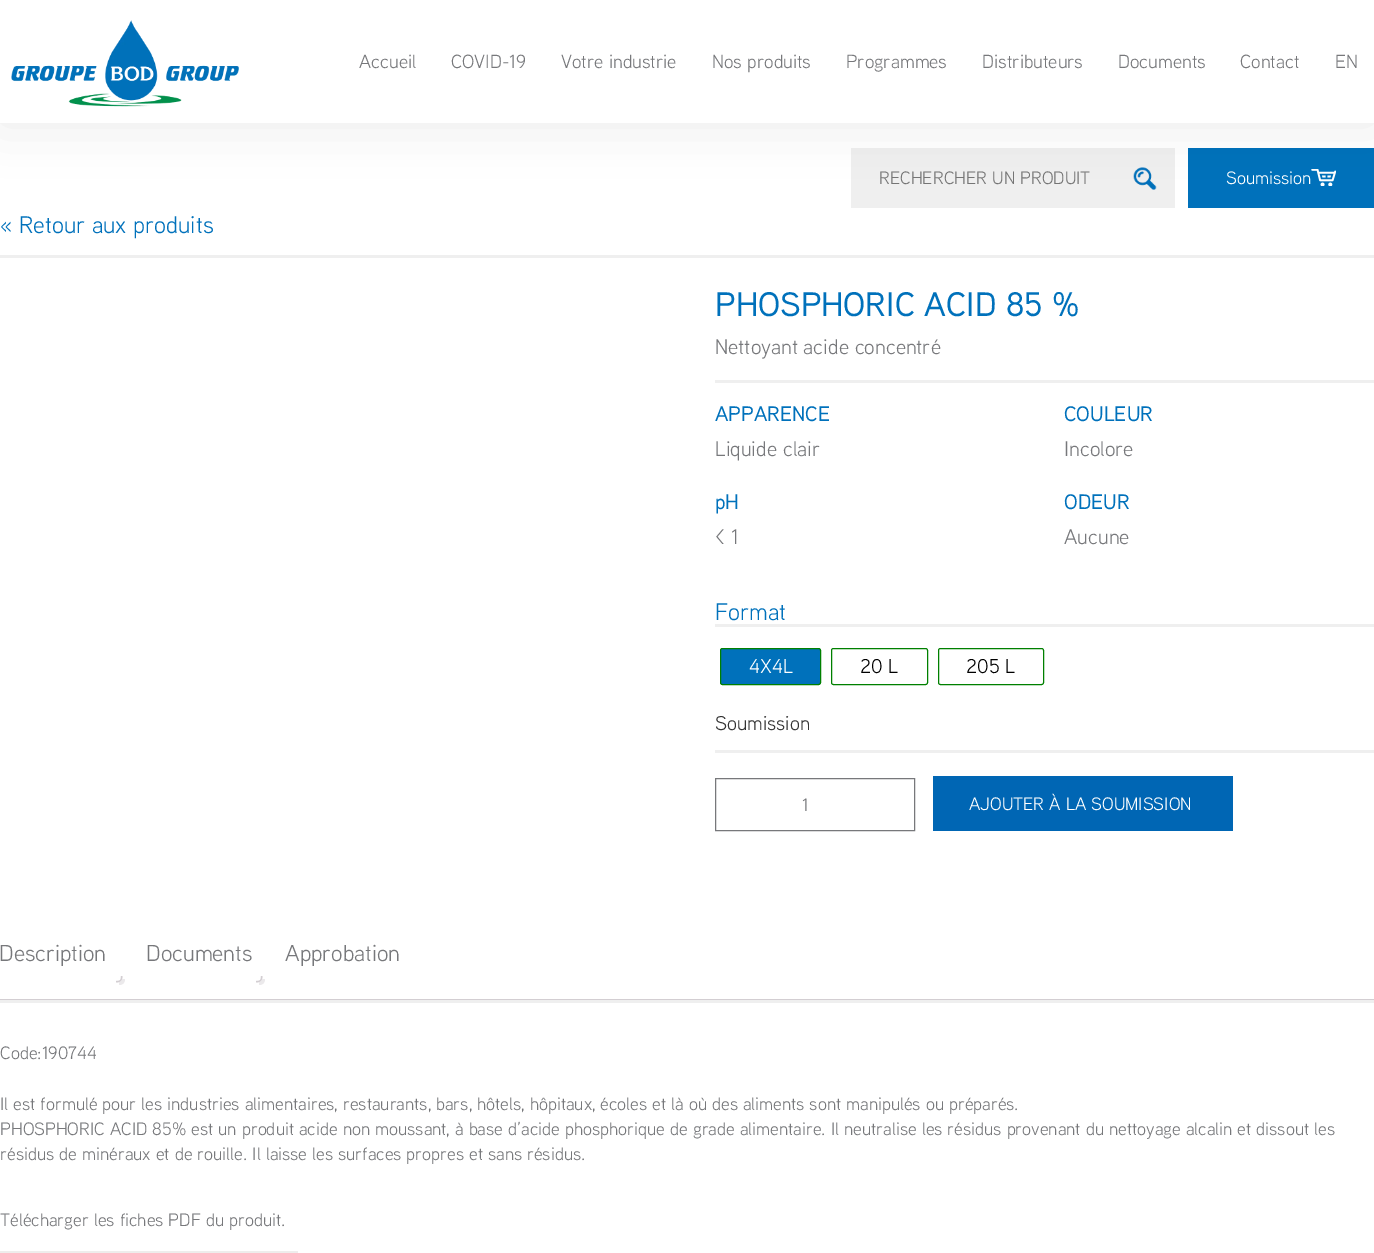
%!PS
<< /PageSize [1374 1253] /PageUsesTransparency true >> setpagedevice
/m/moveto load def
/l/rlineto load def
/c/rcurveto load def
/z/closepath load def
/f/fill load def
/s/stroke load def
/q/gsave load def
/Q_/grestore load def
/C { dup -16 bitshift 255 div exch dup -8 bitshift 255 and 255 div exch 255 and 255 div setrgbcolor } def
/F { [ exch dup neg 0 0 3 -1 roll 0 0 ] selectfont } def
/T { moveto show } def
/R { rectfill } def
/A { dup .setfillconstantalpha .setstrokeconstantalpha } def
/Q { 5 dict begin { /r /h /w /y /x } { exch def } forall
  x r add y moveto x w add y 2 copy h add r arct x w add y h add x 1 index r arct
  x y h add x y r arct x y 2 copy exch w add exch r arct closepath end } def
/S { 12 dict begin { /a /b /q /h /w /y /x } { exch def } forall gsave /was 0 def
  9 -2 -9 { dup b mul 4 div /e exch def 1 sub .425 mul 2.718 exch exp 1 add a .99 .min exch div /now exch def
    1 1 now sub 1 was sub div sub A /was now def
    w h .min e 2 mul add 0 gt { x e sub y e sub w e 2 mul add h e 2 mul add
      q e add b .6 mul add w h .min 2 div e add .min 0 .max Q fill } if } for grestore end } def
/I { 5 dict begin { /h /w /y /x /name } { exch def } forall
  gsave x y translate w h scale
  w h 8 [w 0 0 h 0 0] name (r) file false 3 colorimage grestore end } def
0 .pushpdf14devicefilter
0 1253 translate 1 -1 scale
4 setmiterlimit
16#FFFFFF C
0 0 1374 1253 R
16#EFEFEF C
851 148 324 60 R
(2.rgb) 1133 167 24 23 I
16#0071BB C
1188 148 186 60 R
(3.rgb) 1311 169 25 17 I
16#000000 C
0 0 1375 123 0 25 .08 S
16#FFFFFF C
0 0 1374 123 R
(1.rgb) 11 20 228 87 I
/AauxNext-Regular 19 F
16#77787B C
(Accueil) 359 68 T
(COVID-19) 451 68 T
(Votre industrie) 561 68 T
(Nos produits) 712 68 T
(Programmes) 846 68 T
(Distributeurs) 982 68 T
(Documents) 1118 68 T
(Contact) 1240 68 T
(EN) 1335 68 T
/AauxNext-Regular 18 F
16#757575 C
(RECHERCHER UN PRODUIT) 879 184 T
16#FFFFFF C
(Soumission) 1226 184 T
16#EFEFEF C
0 255 1374 3 R
/AauxNext-Regular 24 F
16#0071BB C
(« Retour aux produits) 0 233 T
/AauxNext-Medium 34 F
(PHOSPHORIC ACID 85 %) 715 316 T
16#EFEFEF C
715 380 659 3 R
/AauxNext-Regular 21 F
16#77787B C
(Nettoyant acide concentré) 715 354 T
/AauxNext-Medium 21 F
16#0071BB C
(APPARENCE) 715 421 T
/AauxNext-Regular 21 F
16#77787B C
(Liquide clair) 715 456 T
/AauxNext-Medium 21 F
16#0071BB C
(COULEUR) 1064 421 T
/AauxNext-Regular 21 F
16#77787B C
(Incolore) 1064 456 T
/AauxNext-Medium 21 F
16#0071BB C
(pH) 715 509 T
/AauxNext-Regular 21 F
16#77787B C
(< 1) 715 544 T
/AauxNext-Medium 21 F
16#0071BB C
(ODEUR) 1064 509 T
/AauxNext-Regular 21 F
16#77787B C
(Aucune) 1064 544 T
16#EFEFEF C
715 624 659 3 R
/AauxNext-Regular 24 F
16#0071BB C
(Format) 715 620 T
720.5 648.5 100 36 2 Q q f Q_
16#008000 C
s
/AauxNext-Regular 20 F
16#FFFFFF C
(4X4L) 749 673 T
16#008000 C
831.5 648.5 96 36 2 Q s
16#000000 C
(20 L) 860 673 T
16#008000 C
938.5 648.5 105 36 2 Q s
16#000000 C
(205 L) 966 673 T
16#333333 C
(Soumission) 715 730 T
16#EFEFEF C
715 750 659 3 R
16#77787B C
715.5 778.5 199 52 rectstroke
/AauxNext-Regular 18 F
(1) 802 811 T
16#0066B4 C
933 776 300 55 R
16#FFFFFF C
(AJOUTER À LA SOUMISSION) 969 810 T
16#EFEFEF C
0 1000 1374 3 R
/AauxNext-Regular 23 F
16#77787B C
(Description) -1 961 T
(Documents) 146 961 T
16#EBE9EB C
119 982.5 m 0 2.5 l 4 0 6 -2 6 -6 c -2.5 0 l -.5 1.5 -2 3 -3.5 3.5 c z f
16#D3CED2 C
116 976 m 6.5 0 l 0 4.5 -2 6.5 -6.5 6.5 c z 116 976 m 5 0 l 0 4 -1 5 -5 5 c z eofill
16#77787B C
(Approbation) 285 961 T
16#EBE9EB C
259 982.5 m 0 2.5 l 4 0 6 -2 6 -6 c -2.5 0 l -.5 1.5 -2 3 -3.5 3.5 c z f
16#D3CED2 C
256 976 m 6.5 0 l 0 4.5 -2 6.5 -6.5 6.5 c z 256 976 m 5 0 l 0 4 -1 5 -5 5 c z eofill
0 999 1374 1 R
/AauxNext-Regular 18 F
16#77787B C
(Code:190744) 0 1059 T
(Il est formulé pour les industries alimentaires, restaurants, bars, hôtels, hôpitaux, écoles et là où des aliments sont manipulés ou préparés.) 0 1110 T
(PHOSPHORIC ACID 85% est un produit acide non moussant, à base d’acide phosphorique de grade alimentaire. Il neutralise les résidus provenant du nettoyage alcalin et dissout les) 0 1135 T
(résidus de minéraux et de rouille. Il laisse les surfaces propres et sans résidus.) 0 1160 T
(Télécharger les fiches PDF du produit.) 0 1226 T
16#EEEDEC C
0 1251 298 2 R
.poppdf14devicefilter showpage
